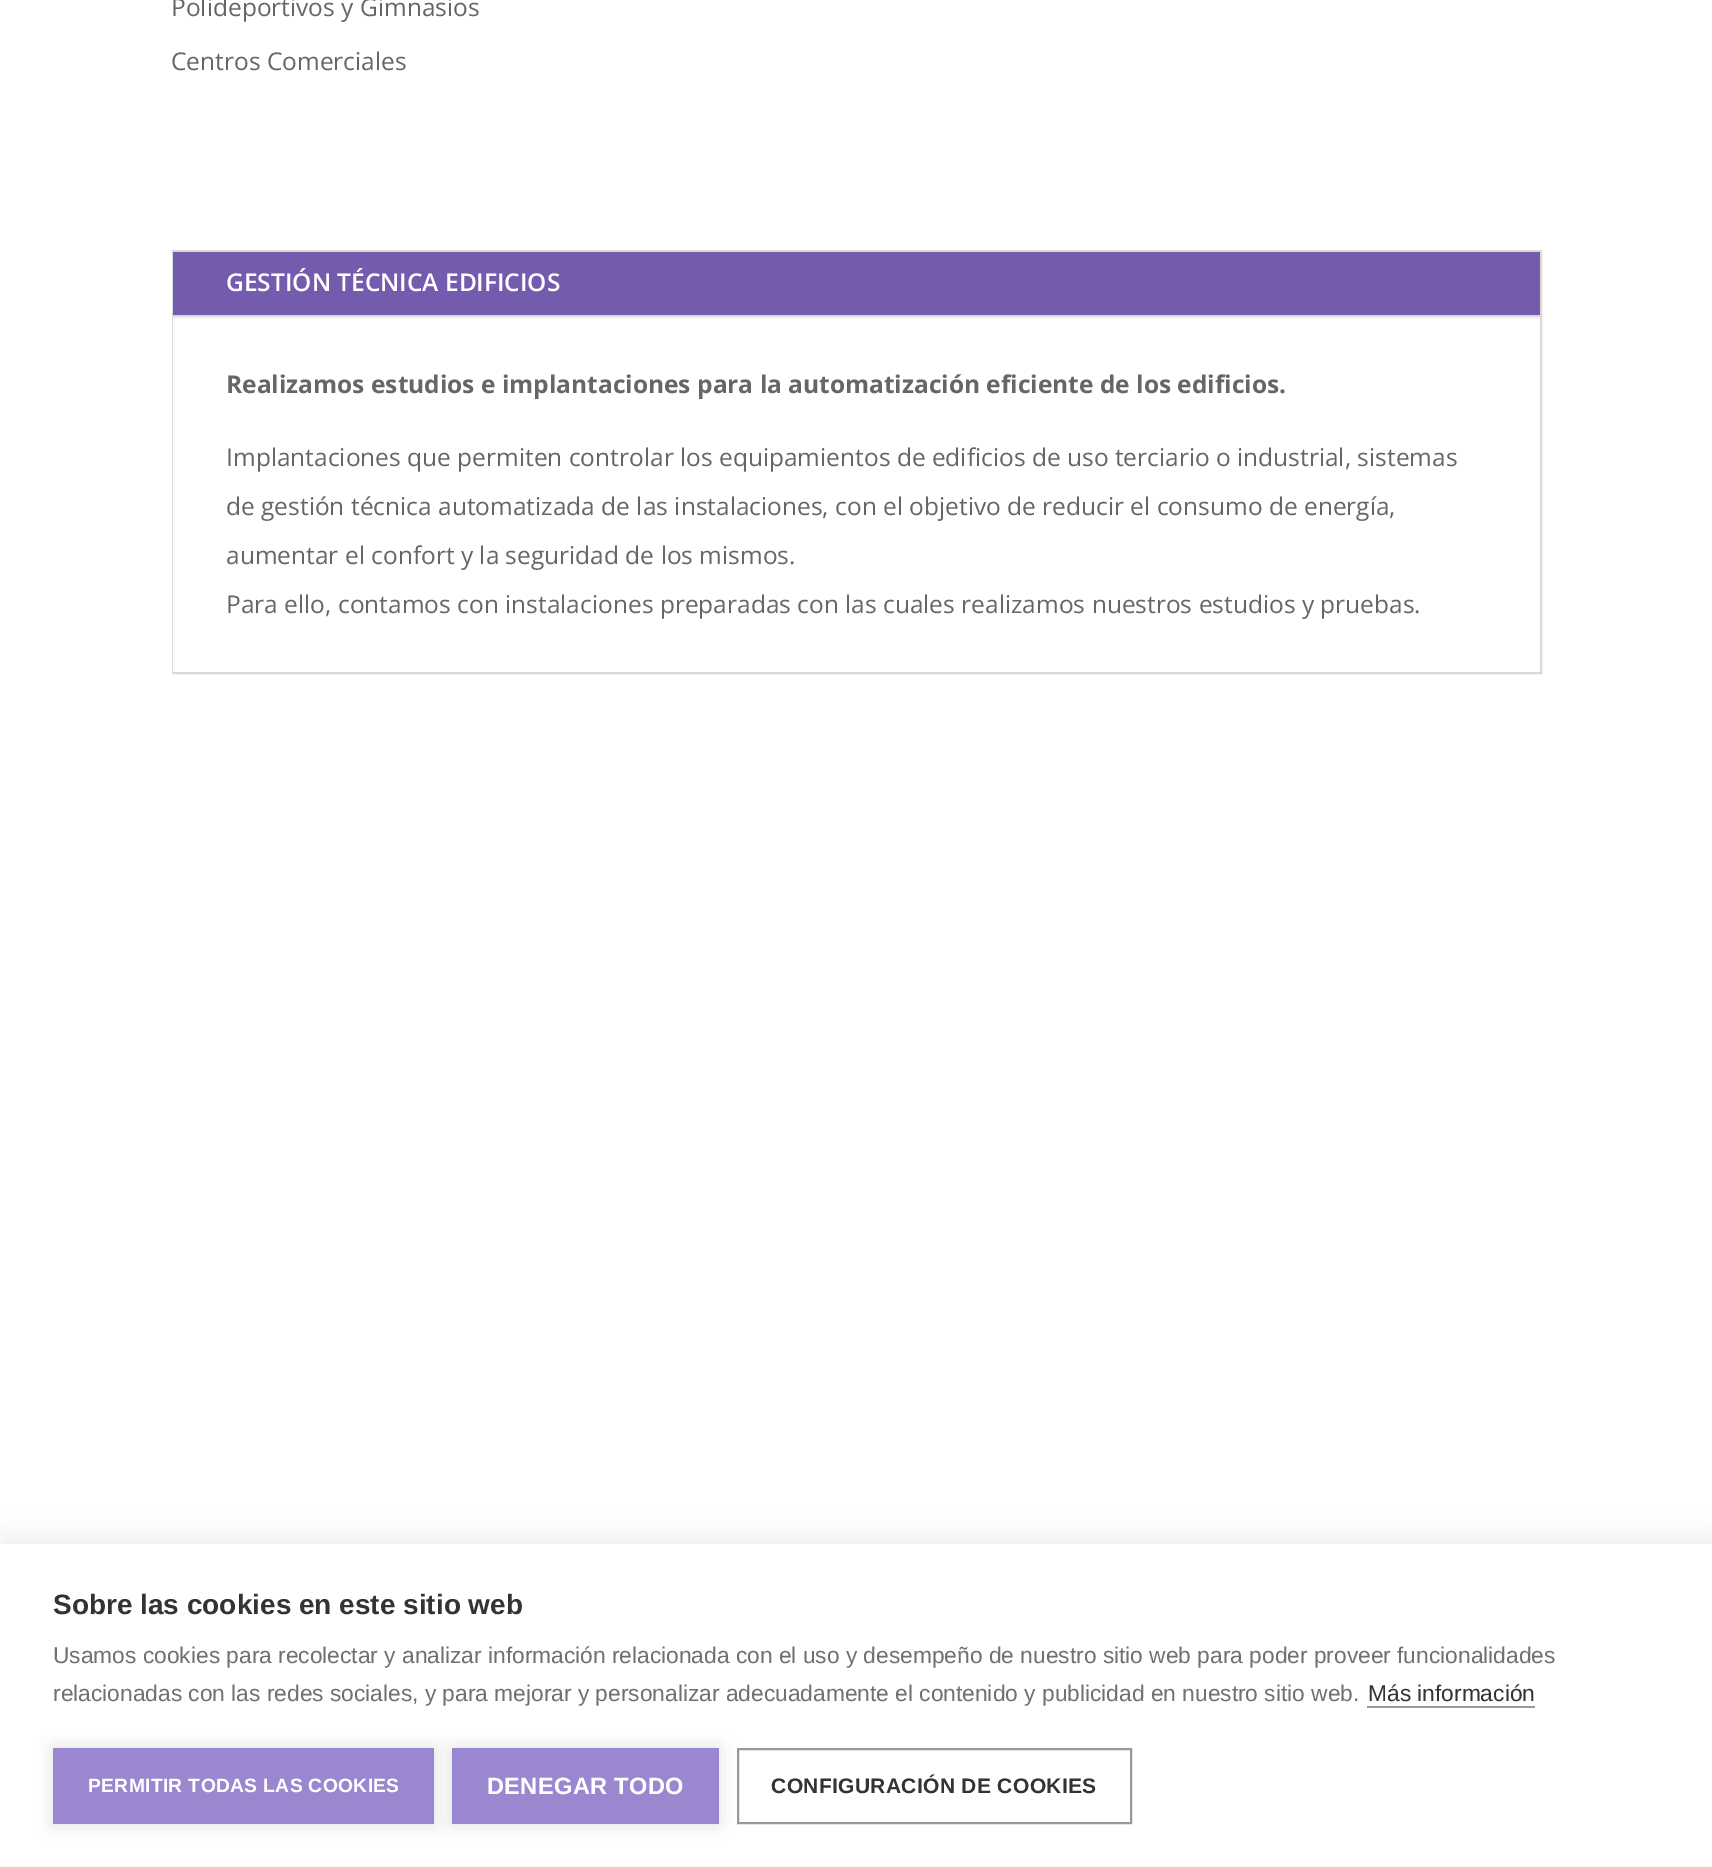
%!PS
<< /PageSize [1712 1867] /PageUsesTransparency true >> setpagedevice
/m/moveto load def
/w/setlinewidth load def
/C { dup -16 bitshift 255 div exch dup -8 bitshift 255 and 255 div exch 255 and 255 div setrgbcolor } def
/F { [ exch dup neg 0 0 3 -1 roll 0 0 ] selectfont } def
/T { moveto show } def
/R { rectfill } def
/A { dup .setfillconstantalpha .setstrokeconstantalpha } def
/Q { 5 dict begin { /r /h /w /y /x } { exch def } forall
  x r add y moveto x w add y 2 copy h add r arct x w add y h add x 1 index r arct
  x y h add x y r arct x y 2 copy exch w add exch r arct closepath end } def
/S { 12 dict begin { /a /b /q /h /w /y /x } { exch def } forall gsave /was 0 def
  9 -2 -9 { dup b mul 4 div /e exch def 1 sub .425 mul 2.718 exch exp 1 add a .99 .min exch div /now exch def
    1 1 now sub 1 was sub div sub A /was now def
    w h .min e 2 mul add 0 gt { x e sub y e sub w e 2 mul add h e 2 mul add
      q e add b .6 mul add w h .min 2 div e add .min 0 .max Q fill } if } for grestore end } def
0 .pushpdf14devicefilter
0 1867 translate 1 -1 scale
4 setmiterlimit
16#FFFFFF C
0 0 1712 1867 R
/OpenSans-Regular 24.5 F
16#666666 C
(Polideportivos y Gimnasios) 171 16 T
(Centros Comerciales) 171 70 T
16#D9D9D9 C
2 w
173 251 1368 422 rectstroke
16#F4F4F4 C
173 317 1367 2 R
16#745BAE C
173 252 1367 63 R
16#D9D9D9 C
173 315 1367 2 R
/OpenSans-SemiBold 24.5 F
16#FFFFFF C
(GESTIÓN TÉCNICA EDIFICIOS) 226 291 T
173 319 1 353 R
/OpenSans-Bold 24.5 F
16#666666 C
(Realizamos estudios e implantaciones para la automatización eficiente de los edificios.) 226 393 T
/OpenSans-Regular 24.5 F
(Implantaciones que permiten controlar los equipamientos de edificios de uso terciario o industrial, sistemas) 226 466 T
(de gestión técnica automatizada de las instalaciones, con el objetivo de reducir el consumo de energía,) 226 515 T
(aumentar el confort y la seguridad de los mismos.) 226 564 T
(Para ello, contamos con instalaciones preparadas con las cuales realizamos nuestros estudios y pruebas.) 226 613 T
16#000000 C
0 1544 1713 323 0 17.5 .1 S
16#FFFFFF C
0 1544 1712 323 R
/LiberationSans-Bold 28 F
16#333333 C
(Sobre las cookies en este sitio web) 53 1614 T
/LiberationSans-Regular 22.75 F
16#707070 C
(Usamos cookies para recolectar y analizar información relacionada con el uso y desempeño de nuestro sitio web para poder proveer funcionalidades) 53 1663 T
(relacionadas con las redes sociales, y para mejorar y personalizar adecuadamente el contenido y publicidad en nuestro sitio web.) 53 1701 T
16#333333 C
(Más información) 1368 1701 T
16#999999 C
1367 1706 168 2 R
16#000000 C
53 1748 381 76 0 9 .12 S
16#9B87CF C
53 1748 381 76 R
/LiberationSans-Bold 19.25 F
16#FFFFFF C
88 1792 m .35 0 (PERMITIR TODAS LAS COOKIES) ashow
16#000000 C
452 1748 267 76 0 9 .12 S
16#9B87CF C
452 1748 267 76 R
/LiberationSans-Bold 23.6 F
16#FFFFFF C
487 1794 m .35 0 (DENEGAR TODO) ashow
16#999999 C
738 1749 393 74 rectstroke
/LiberationSans-Bold 21 F
16#333333 C
771 1793 m .35 0 (CONFIGURACIÓN DE COOKIES) ashow
.poppdf14devicefilter showpage
